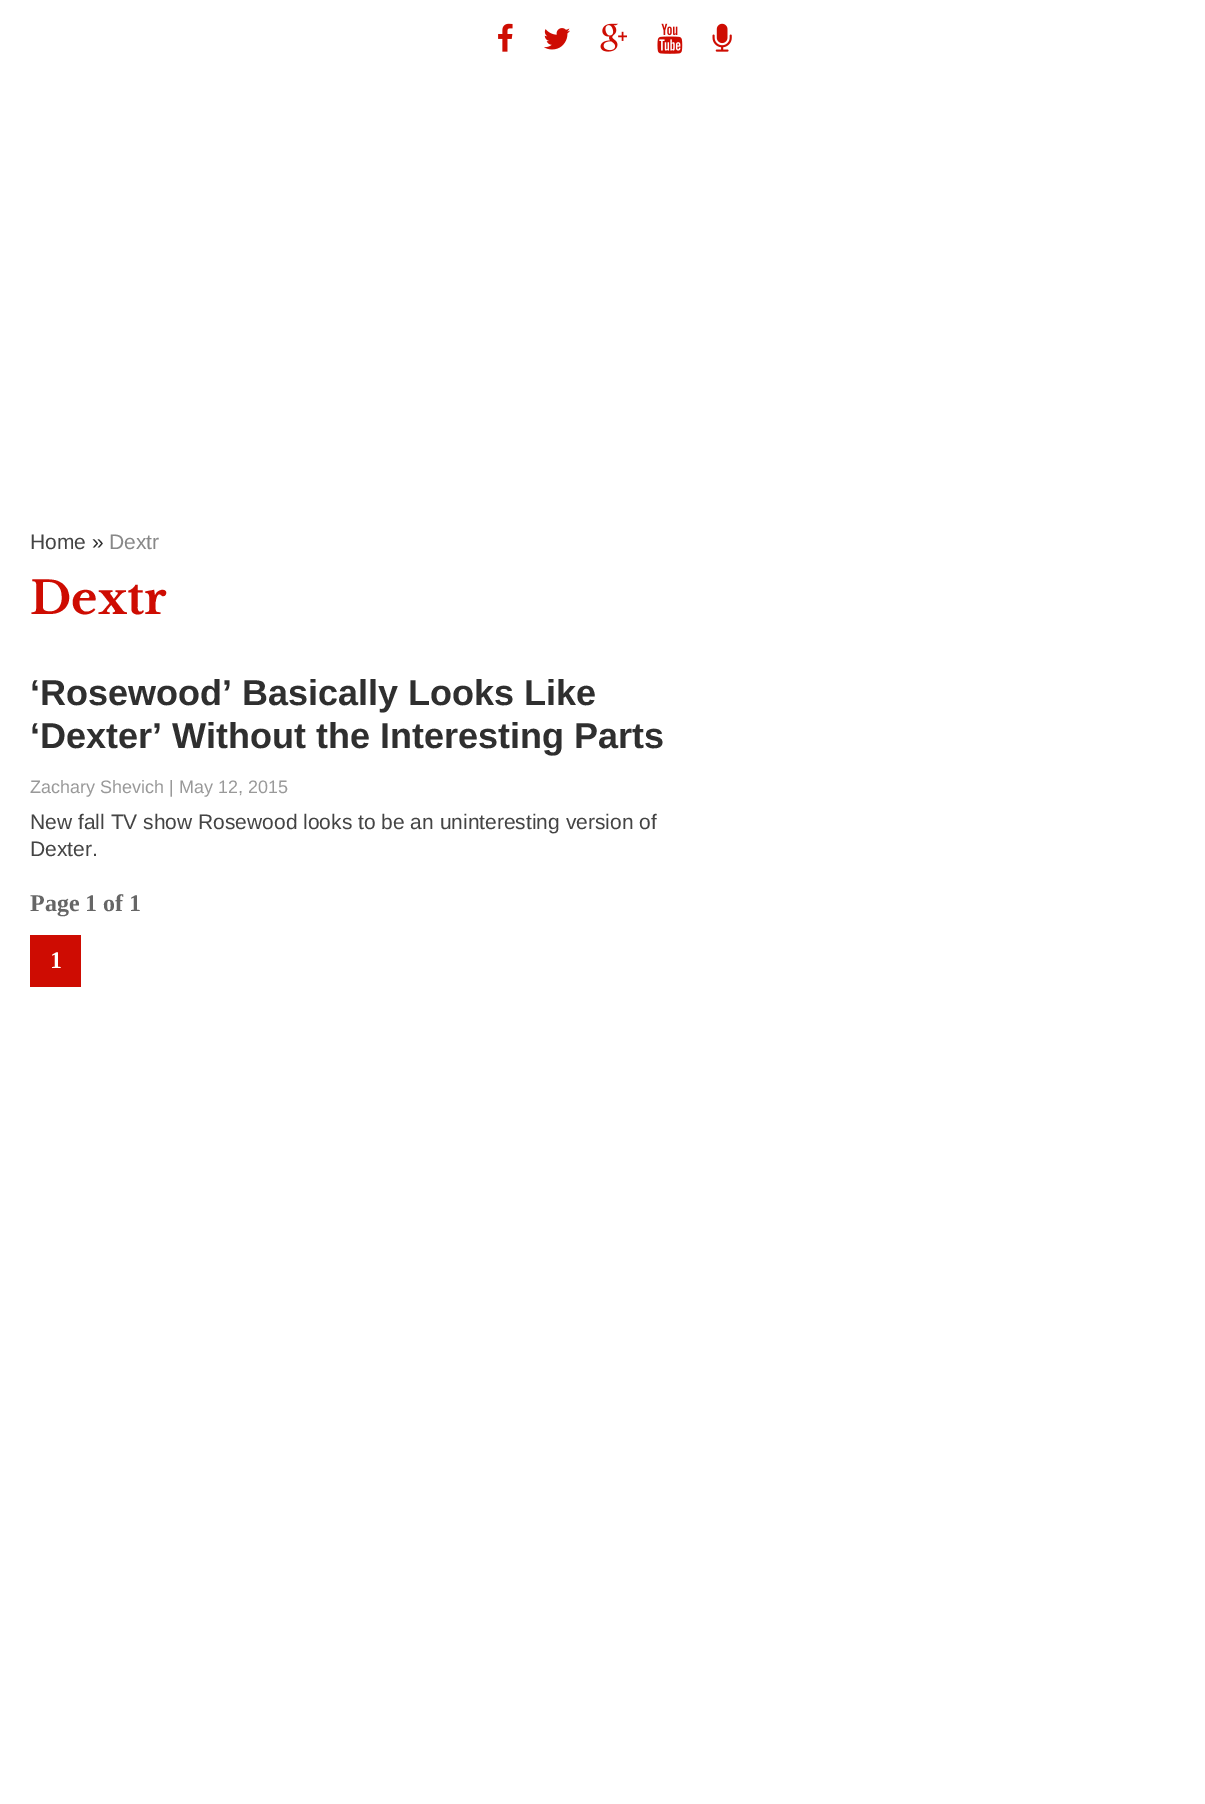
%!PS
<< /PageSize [1205 1804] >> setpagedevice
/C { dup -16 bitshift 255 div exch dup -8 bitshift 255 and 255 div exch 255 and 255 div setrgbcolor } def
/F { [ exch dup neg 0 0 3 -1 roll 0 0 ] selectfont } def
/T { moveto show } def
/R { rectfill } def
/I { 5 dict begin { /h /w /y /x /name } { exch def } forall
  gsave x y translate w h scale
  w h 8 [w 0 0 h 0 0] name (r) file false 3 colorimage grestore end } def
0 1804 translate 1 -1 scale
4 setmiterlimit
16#FFFFFF C
0 0 1205 1804 R
(1.rgb) 498 23 15 29 I
(2.rgb) 544 28 26 22 I
(3.rgb) 600 23 27 29 I
(4.rgb) 657 23 26 31 I
(5.rgb) 712 23 20 29 I
/LiberationSans-Regular 21 F
16#444444 C
(Home) 30 549 T
16#2F2F2F C
(») 92 549 T
16#888888 C
(Dextr) 109 549 T
/LibreBaskerville-Bold 45 F
16#CE0C02 C
(Dextr) 30 614 T
/LiberationSans-Bold 36 F
16#2F2F2F C
(‘Rosewood’ Basically Looks Like) 30 705 T
(‘Dexter’ Without the Interesting Parts) 30 748 T
/LiberationSans-Regular 18 F
16#999999 C
(Zachary Shevich | May 12, 2015) 30 793 T
/LiberationSans-Regular 21 F
16#444444 C
(New fall TV show Rosewood looks to be an uninteresting version of) 30 829 T
(Dexter.) 30 856 T
/LiberationSerif-Bold 24 F
16#666666 C
(Page 1 of 1) 30 911 T
16#CE0C02 C
30 935 51 52 R
16#FFFFFF C
(1) 50 968 T
showpage
